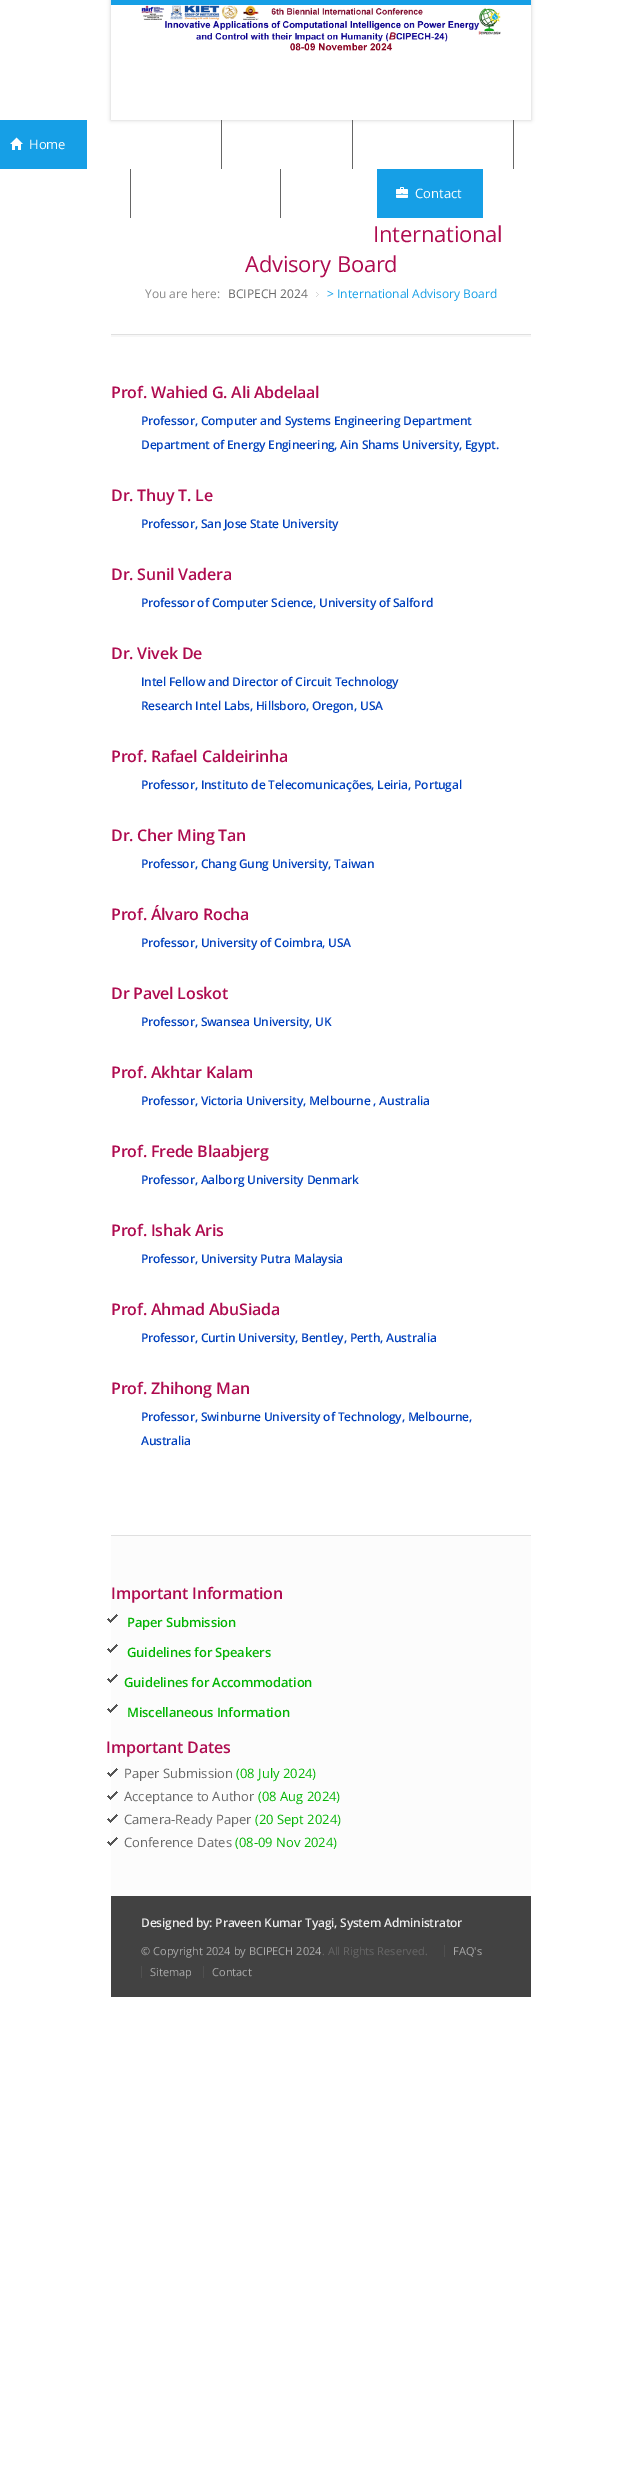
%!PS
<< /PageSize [642 2473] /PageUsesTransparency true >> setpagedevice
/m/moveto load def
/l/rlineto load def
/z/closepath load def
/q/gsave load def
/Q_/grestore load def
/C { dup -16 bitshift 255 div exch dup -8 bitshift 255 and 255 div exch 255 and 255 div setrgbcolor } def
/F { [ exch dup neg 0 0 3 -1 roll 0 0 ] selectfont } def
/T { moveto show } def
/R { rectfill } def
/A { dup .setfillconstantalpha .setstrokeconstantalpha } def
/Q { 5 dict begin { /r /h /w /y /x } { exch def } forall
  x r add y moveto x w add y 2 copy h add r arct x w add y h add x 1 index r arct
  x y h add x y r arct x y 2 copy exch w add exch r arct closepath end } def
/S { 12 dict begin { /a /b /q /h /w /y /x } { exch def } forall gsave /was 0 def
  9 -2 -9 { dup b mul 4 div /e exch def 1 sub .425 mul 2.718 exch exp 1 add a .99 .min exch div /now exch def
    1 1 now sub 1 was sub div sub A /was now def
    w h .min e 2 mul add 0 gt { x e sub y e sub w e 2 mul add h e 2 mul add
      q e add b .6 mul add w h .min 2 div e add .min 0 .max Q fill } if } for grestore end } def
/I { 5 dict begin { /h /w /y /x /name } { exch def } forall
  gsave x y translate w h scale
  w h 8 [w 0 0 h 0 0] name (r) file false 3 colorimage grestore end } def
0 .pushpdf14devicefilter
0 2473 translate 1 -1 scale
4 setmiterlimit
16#FFFFFF C
0 0 642 2473 R
q
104 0 m 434 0 l 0 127 l -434 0 l z 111 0 m 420 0 l 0 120 l -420 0 l z eoclip newpath
16#000000 C
111 0 420 120 0 2 .2 S
Q_
16#169FE6 C
111 0 420 5 R
(1.rgb) 141 5 360 46 I
0 120 87 49 R
(2.rgb) 10 137 13 13 I
/OpenSans-Regular 13 F
16#FFFFFF C
(Home) 29 149 T
16#666666 C
221 120 1 49 R
352 120 1 49 R
513 120 1 49 R
130 169 1 49 R
280 169 1 49 R
16#169FE6 C
377 169 106 49 R
(3.rgb) 396 187 12 11 I
16#FFFFFF C
(Contact) 415 198 T
16#F7F7F7 C
111 335 420 2 R
16#E0E0E0 C
111 334 420 1 R
/OpenSans-Regular 22 F
16#AE0B4F C
373 242 m -.2 0 (International) ashow
245 272 m -.2 0 (Advisory Board) ashow
/OpenSans-Regular 12 F
16#888888 C
(You are here:) 145 298 T
(4.rgb) 316 292 3 5 I
16#666666 C
(BCIPECH 2024) 228 298 T
16#169FE6 C
(> International Advisory Board) 327 298 T
/OpenSans-SemiBold 16 F
16#AE0B4F C
111 398 m -.2 0 (Prof. Wahied G. Ali Abdelaal) ashow
/OpenSans-SemiBold 12 F
16#0040BD C
141 425 m -.2 0 (Professor, Computer and Systems Engineering Department) ashow
141 449 m -.2 0 (Department of Energy Engineering, Ain Shams University, Egypt.) ashow
/OpenSans-SemiBold 16 F
16#AE0B4F C
111 501 m -.2 0 (Dr. Thuy T. Le) ashow
/OpenSans-SemiBold 12 F
16#0040BD C
141 528 m -.2 0 (Professor, San Jose State University) ashow
/OpenSans-SemiBold 16 F
16#AE0B4F C
111 580 m -.2 0 (Dr. Sunil Vadera) ashow
/OpenSans-SemiBold 12 F
16#0040BD C
141 607 m -.2 0 (Professor of Computer Science, University of Salford) ashow
/OpenSans-SemiBold 16 F
16#AE0B4F C
111 659 m -.2 0 (Dr. Vivek De) ashow
/OpenSans-SemiBold 12 F
16#0040BD C
141 686 m -.2 0 (Intel Fellow and Director of Circuit Technology) ashow
141 710 m -.2 0 (Research Intel Labs, Hillsboro, Oregon, USA) ashow
/OpenSans-SemiBold 16 F
16#AE0B4F C
111 762 m -.2 0 (Prof. Rafael Caldeirinha) ashow
/OpenSans-SemiBold 12 F
16#0040BD C
141 789 m -.2 0 (Professor, Instituto de Telecomunicações, Leiria, Portugal) ashow
/OpenSans-SemiBold 16 F
16#AE0B4F C
111 841 m -.2 0 (Dr. Cher Ming Tan) ashow
/OpenSans-SemiBold 12 F
16#0040BD C
141 868 m -.2 0 (Professor, Chang Gung University, Taiwan) ashow
/OpenSans-SemiBold 16 F
16#AE0B4F C
111 920 m -.2 0 (Prof. Álvaro Rocha) ashow
/OpenSans-SemiBold 12 F
16#0040BD C
141 947 m -.2 0 (Professor, University of Coimbra, USA) ashow
/OpenSans-SemiBold 16 F
16#AE0B4F C
111 999 m -.2 0 (Dr Pavel Loskot) ashow
/OpenSans-SemiBold 12 F
16#0040BD C
141 1026 m -.2 0 (Professor, Swansea University, UK) ashow
/OpenSans-SemiBold 16 F
16#AE0B4F C
111 1078 m -.2 0 (Prof. Akhtar Kalam) ashow
/OpenSans-SemiBold 12 F
16#0040BD C
141 1105 m -.2 0 (Professor, Victoria University, Melbourne , Australia) ashow
/OpenSans-SemiBold 16 F
16#AE0B4F C
111 1157 m -.2 0 (Prof. Frede Blaabjerg) ashow
/OpenSans-SemiBold 12 F
16#0040BD C
141 1184 m -.2 0 (Professor, Aalborg University Denmark) ashow
/OpenSans-SemiBold 16 F
16#AE0B4F C
111 1236 m -.2 0 (Prof. Ishak Aris) ashow
/OpenSans-SemiBold 12 F
16#0040BD C
141 1263 m -.2 0 (Professor, University Putra Malaysia) ashow
/OpenSans-SemiBold 16 F
16#AE0B4F C
111 1315 m -.2 0 (Prof. Ahmad AbuSiada) ashow
/OpenSans-SemiBold 12 F
16#0040BD C
141 1342 m -.2 0 (Professor, Curtin University, Bentley, Perth, Australia) ashow
/OpenSans-SemiBold 16 F
16#AE0B4F C
111 1394 m -.2 0 (Prof. Zhihong Man) ashow
/OpenSans-SemiBold 12 F
16#0040BD C
141 1421 m -.2 0 (Professor, Swinburne University of Technology, Melbourne,) ashow
141 1445 m -.2 0 (Australia) ashow
16#FCFCFC C
111 1536 420 360 R
16#E0E0E0 C
111 1535 420 1 R
/OpenSans-SemiBold 16 F
16#AE0B4F C
111 1599 m -.2 0 (Important Information) ashow
(5.rgb) 107 1614 11 9 I
/OpenSans-SemiBold 13 F
16#04B404 C
127 1627 m -.2 0 (Paper Submission) ashow
(5.rgb) 107 1644 11 9 I
127 1657 m -.2 0 (Guidelines for Speakers) ashow
(5.rgb) 107 1674 11 9 I
124 1687 m -.2 0 (Guidelines for Accommodation) ashow
(5.rgb) 107 1704 11 9 I
127 1717 m -.2 0 (Miscellaneous Information) ashow
/OpenSans-SemiBold 16 F
16#AE0B4F C
106 1753 m -.2 0 (Important Dates) ashow
(5.rgb) 107 1768 11 9 I
/OpenSans-Regular 13 F
16#666666 C
(Paper Submission) 124 1778 T
16#04B404 C
(\(08 July 2024\)) 236 1778 T
(5.rgb) 107 1791 11 9 I
16#666666 C
(Acceptance to Author) 124 1801 T
16#04B404 C
(\(08 Aug 2024\)) 258 1801 T
(5.rgb) 107 1814 11 9 I
16#666666 C
(Camera-Ready Paper) 124 1824 T
16#04B404 C
(\(20 Sept 2024\)) 255 1824 T
(5.rgb) 107 1837 11 9 I
16#666666 C
(Conference Dates) 124 1847 T
16#04B404 C
(\(08-09 Nov 2024\)) 235 1847 T
16#424242 C
111 1896 420 101 R
/OpenSans-SemiBold 12 F
16#EEEEEE C
141 1927 m -.2 0 (Designed by: Praveen Kumar Tyagi, System Administrator) ashow
/OpenSans-Regular 11 F
16#AAAAAA C
(© Copyright 2024 by BCIPECH 2024) 141 1955 T
16#666666 C
(. All Rights Reserved.) 322 1955 T
16#505050 C
444 1945 1 12 R
16#AAAAAA C
(FAQ's) 453 1955 T
16#505050 C
141 1966 1 12 R
16#AAAAAA C
(Sitemap) 150 1976 T
16#505050 C
203 1966 1 12 R
16#AAAAAA C
(Contact) 212 1976 T
.poppdf14devicefilter showpage
